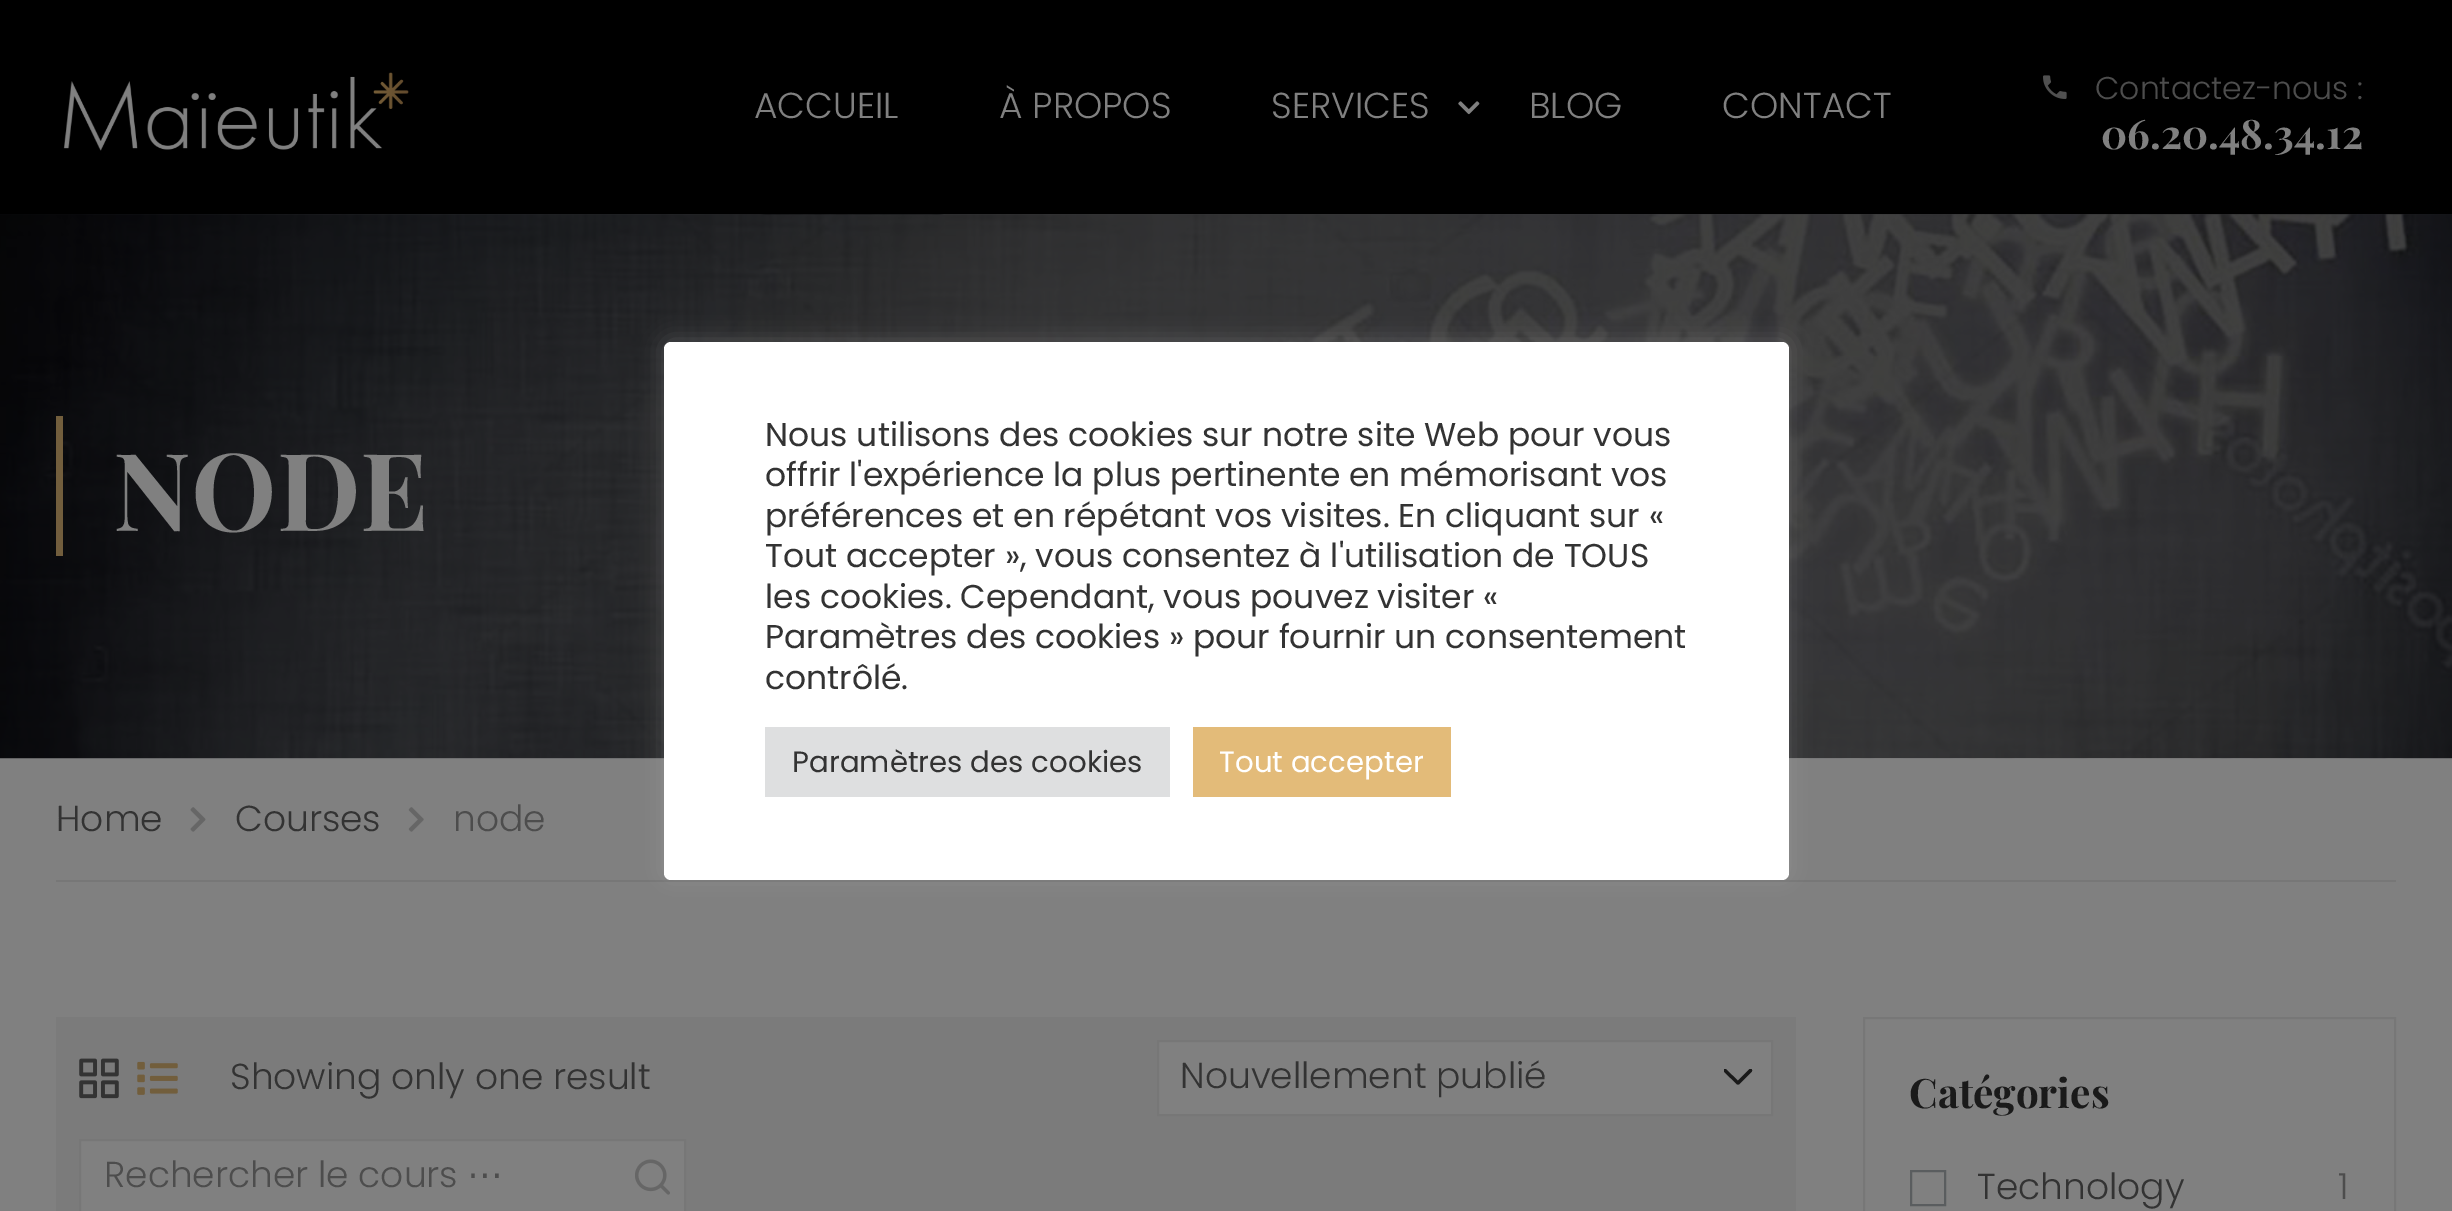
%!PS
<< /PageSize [2452 1211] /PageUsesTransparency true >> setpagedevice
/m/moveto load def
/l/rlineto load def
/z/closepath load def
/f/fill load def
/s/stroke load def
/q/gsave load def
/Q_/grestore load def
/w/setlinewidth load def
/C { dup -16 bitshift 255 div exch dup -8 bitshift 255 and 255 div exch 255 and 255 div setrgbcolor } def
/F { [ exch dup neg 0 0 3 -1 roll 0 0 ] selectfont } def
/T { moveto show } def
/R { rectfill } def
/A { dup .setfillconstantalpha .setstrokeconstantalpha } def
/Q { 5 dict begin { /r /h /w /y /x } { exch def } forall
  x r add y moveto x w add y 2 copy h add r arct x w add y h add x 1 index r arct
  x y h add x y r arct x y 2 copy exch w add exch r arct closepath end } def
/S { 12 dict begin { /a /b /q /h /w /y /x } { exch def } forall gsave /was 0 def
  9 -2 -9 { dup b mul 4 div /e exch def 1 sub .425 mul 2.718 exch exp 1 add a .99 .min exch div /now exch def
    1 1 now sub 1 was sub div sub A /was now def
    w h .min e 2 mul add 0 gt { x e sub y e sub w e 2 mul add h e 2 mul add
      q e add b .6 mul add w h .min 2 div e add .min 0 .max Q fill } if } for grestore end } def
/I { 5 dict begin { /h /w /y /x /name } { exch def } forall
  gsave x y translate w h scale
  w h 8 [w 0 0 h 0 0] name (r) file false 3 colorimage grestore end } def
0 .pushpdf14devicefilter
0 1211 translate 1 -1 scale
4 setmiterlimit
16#808080 C
0 0 2452 1211 R
16#000000 C
0 0 2452 214 R
(1.rgb) 63 72 346 79 I
/Poppins-Light 36 F
16#808080 C
(ACCUEIL) 754 118 T
(À PROPOS) 999 118 T
(SERVICES) 1271 118 T
(2.rgb) 1458 101 22 14 I
(BLOG) 1529 118 T
(CONTACT) 1722 118 T
(3.rgb) 2043 75 24 24 I
/Poppins-Light 31.5 F
16#4D4D4D C
(Contactez-nous :) 2095 99 T
/PlayfairDisplay-Bold 40.5 F
16#808080 C
(06.20.48.34.12) 2101 149 T
(4.rgb) 0 214 2452 545 I
16#725E3D C
56 416 7 140 R
/PlayfairDisplay-Bold 108 F
16#808080 C
(NODE) 113 531 T
16#777777 C
56 880 2340 2 R
/Poppins-Light 36 F
16#333333 C
(Home) 56 831 T
(5.rgb) 190 807 16 25 I
(Courses) 235 831 T
(6.rgb) 408 807 16 25 I
16#4D4D4D C
(node) 453 831 T
16#7B7B7B C
56 1017 1740 194 R
(7.rgb) 79 1058 40 41 I
(8.rgb) 137 1061 41 34 I
16#333333 C
(Showing only one result) 230 1089 T
16#808080 C
1159 1042 612 72 R
q
1724 1069 29 16 rectclip
16#1A1A1A C
3.2 w
1 setlinecap
1 setlinejoin
1725 1070.5 m 13 12.5 l 12.5 -12.5 l s
Q_
16#777777 C
2 w
1158 1041 614 74 rectstroke
16#333333 C
(Nouvellement publié) 1180 1088 T
16#808080 C
80 1140 m 605 0 l 0 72 l -605 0 l z q f Q_
16#777777 C
s
16#4D4D4D C
(Rechercher le cours) 104 1187 T
/DejaVuSans-Regular 36 F
(⋯) 467 1187 T
(9.rgb) 635 1159 35 36 I
16#777777 C
1864 1018 531 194 rectstroke
/PlayfairDisplay-Bold 40.5 F
16#1A1A1A C
(Catégories) 1909 1108 T
16#5A5D5F C
1911 1171 34 34 rectstroke
/Poppins-Light 36 F
16#333333 C
(Technology) 1977 1199 T
16#4D4D4D C
(1) 2338 1199 T
16#ACABAB C
664 340 1125 538 7 11 .3 S
16#FFFFFF C
664 342 1125 538 7 Q f
/Poppins-Regular 33 F
16#333333 C
(Nous utilisons des cookies sur notre site Web pour vous) 765 446 T
(offrir l'expérience la plus pertinente en mémorisant vos) 765 486 T
(préférences et en répétant vos visites. En cliquant sur «) 765 527 T
(Tout accepter », vous consentez à l'utilisation de TOUS) 765 567 T
(les cookies. Cependant, vous pouvez visiter «) 765 608 T
(Paramètres des cookies » pour fournir un consentement) 765 648 T
(contrôlé.) 765 689 T
16#DEDFE0 C
765 727 405 70 R
/Poppins-Regular 29.25 F
16#333333 C
(Paramètres des cookies) 792 772 T
16#E3BB79 C
1193 727 258 70 R
16#FFFFFF C
(Tout accepter) 1219 772 T
.poppdf14devicefilter showpage
